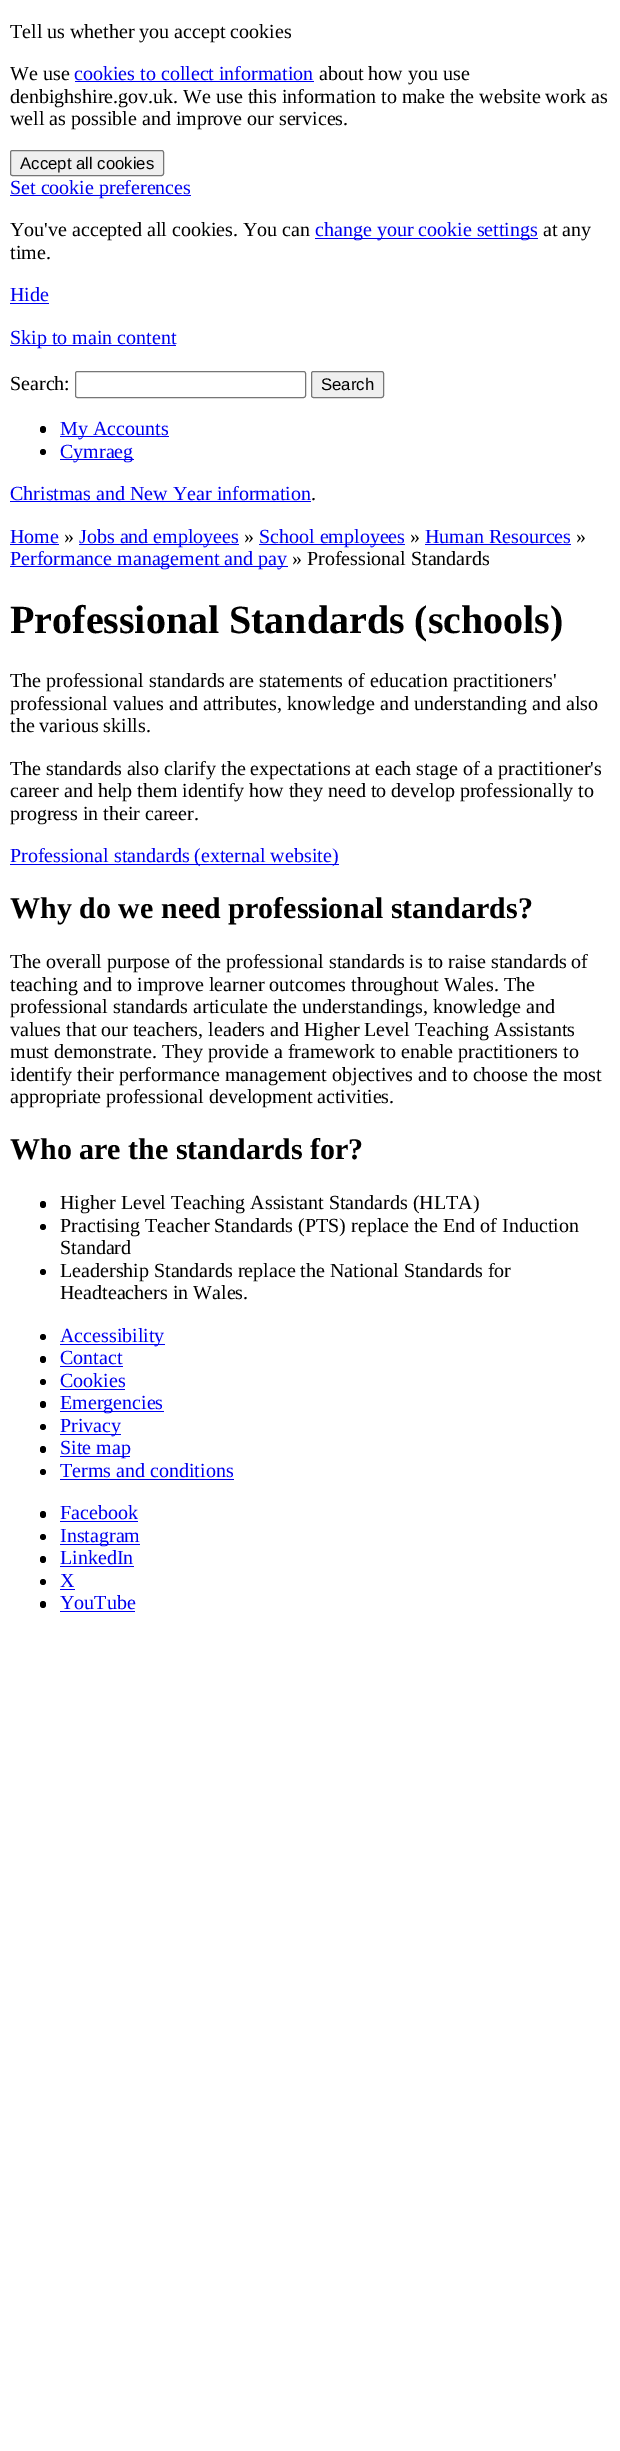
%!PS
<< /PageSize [620 2451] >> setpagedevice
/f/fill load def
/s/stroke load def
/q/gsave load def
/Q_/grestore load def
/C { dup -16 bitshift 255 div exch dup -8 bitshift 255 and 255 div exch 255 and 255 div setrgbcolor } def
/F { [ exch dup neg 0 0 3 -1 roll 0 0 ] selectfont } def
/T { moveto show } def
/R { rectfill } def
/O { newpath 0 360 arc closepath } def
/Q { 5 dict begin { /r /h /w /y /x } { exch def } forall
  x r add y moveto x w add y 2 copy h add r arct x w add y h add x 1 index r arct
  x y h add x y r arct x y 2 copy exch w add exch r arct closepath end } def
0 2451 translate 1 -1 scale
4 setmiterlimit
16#FFFFFF C
0 0 620 2451 R
/LiberationSerif-Regular 20 F
16#000000 C
(Tell us whether you accept cookies) 10 38 T
(We use) 10 80 T
16#0000EE C
(cookies to collect information) 74 80 T
75 81 239 1 R
16#000000 C
(about how you use) 319 80 T
(denbighshire.gov.uk. We use this information to make the website work as) 10 103 T
(well as possible and improve our services.) 10 125 T
16#EFEFEF C
10.5 150.5 153 25 2 Q q f Q_
16#767676 C
s
/LiberationSans-Regular 16.75 F
16#000000 C
(Accept all cookies) 20 169 T
16#0000EE C
10 195 181 1 R
/LiberationSerif-Regular 20 F
(Set cookie preferences) 10 194 T
16#000000 C
(You've accepted all cookies. You can) 10 236 T
16#0000EE C
315 238 223 1 R
(change your cookie settings) 315 236 T
16#000000 C
(at any) 543 236 T
(time.) 10 259 T
16#0000EE C
(Hide) 10 301 T
10 303 39 1 R
10 345 166 1 R
(Skip to main content) 10 344 T
16#000000 C
(Search:) 10 390 T
16#767676 C
75.5 371.5 230 26 2 Q s
16#EFEFEF C
311.5 371.5 72 26 2 Q q f Q_
16#767676 C
s
/LiberationSans-Regular 16.75 F
16#000000 C
(Search) 321 390 T
40 426 6 7 3 Q f
16#0000EE C
60 436 109 1 R
/LiberationSerif-Regular 20 F
(My Accounts) 60 435 T
16#000000 C
43 452 3 O f
16#0000EE C
60 459 74 1 R
(Cymraeg) 60 458 T
(Christmas and New Year information) 10 500 T
10 501 301 1 R
16#000000 C
(.) 311 500 T
16#0000EE C
(Home) 10 543 T
10 544 49 1 R
16#000000 C
(») 64 543 T
16#0000EE C
79 544 160 1 R
(Jobs and employees) 79 543 T
16#000000 C
(») 244 543 T
16#0000EE C
259 544 146 1 R
(School employees) 259 543 T
16#000000 C
(») 410 543 T
16#0000EE C
(Human Resources) 425 543 T
425 544 146 1 R
16#000000 C
(») 576 543 T
16#0000EE C
10 566 278 1 R
(Performance management and pay) 10 565 T
16#000000 C
(» Professional Standards) 292 565 T
/LiberationSerif-Bold 40 F
(Professional Standards \(schools\)) 10 633 T
/LiberationSerif-Regular 20 F
(The professional standards are statements of education practitioners') 10 687 T
(professional values and attributes, knowledge and understanding and also) 10 710 T
(the various skills.) 10 732 T
(The standards also clarify the expectations at each stage of a practitioner's) 10 775 T
(career and help them identify how they need to develop professionally to) 10 797 T
(progress in their career.) 10 820 T
16#0000EE C
10 864 329 1 R
(Professional standards \(external website\)) 10 862 T
/LiberationSerif-Bold 30 F
16#000000 C
(Why do we need professional standards?) 10 918 T
/LiberationSerif-Regular 20 F
(The overall purpose of the professional standards is to raise standards of) 10 968 T
(teaching and to improve learner outcomes throughout Wales. The) 10 991 T
(professional standards articulate the understandings, knowledge and) 10 1013 T
(values that our teachers, leaders and Higher Level Teaching Assistants) 10 1036 T
(must demonstrate. They provide a framework to enable practitioners to) 10 1058 T
(identify their performance management objectives and to choose the most) 10 1081 T
(appropriate professional development activities.) 10 1103 T
/LiberationSerif-Bold 30 F
(Who are the standards for?) 10 1159 T
40 1201 6 7 3 Q f
/LiberationSerif-Regular 20 F
(Higher Level Teaching Assistant Standards \(HLTA\)) 60 1209 T
43 1227 3 O f
(Practising Teacher Standards \(PTS\) replace the End of Induction) 60 1232 T
(Standard) 60 1254 T
43 1272 3 O f
(Leadership Standards replace the National Standards for) 60 1277 T
(Headteachers in Wales.) 60 1299 T
43 1337 3 O f
16#0000EE C
60 1344 105 1 R
(Accessibility) 60 1342 T
16#000000 C
40 1356 6 7 3 Q f
16#0000EE C
(Contact) 60 1364 T
60 1366 63 1 R
16#000000 C
43 1382 3 O f
16#0000EE C
(Cookies) 60 1387 T
60 1389 65 1 R
16#000000 C
40 1401 6 7 3 Q f
16#0000EE C
60 1411 104 1 R
(Emergencies) 60 1409 T
16#000000 C
43 1427 3 O f
16#0000EE C
60 1434 61 1 R
(Privacy) 60 1432 T
16#000000 C
40 1446 6 7 3 Q f
16#0000EE C
60 1456 70 1 R
(Site map) 60 1454 T
16#000000 C
43 1472 3 O f
16#0000EE C
(Terms and conditions) 60 1477 T
60 1479 174 1 R
16#000000 C
40 1511 6 7 3 Q f
16#0000EE C
(Facebook) 60 1519 T
60 1521 78 1 R
16#000000 C
43 1537 3 O f
16#0000EE C
60 1544 80 1 R
(Instagram) 60 1542 T
16#000000 C
40 1556 6 7 3 Q f
16#0000EE C
(LinkedIn) 60 1564 T
60 1566 74 1 R
16#000000 C
43 1582 3 O f
16#0000EE C
(X) 60 1587 T
60 1589 15 1 R
16#000000 C
40 1601 6 7 3 Q f
16#0000EE C
(YouTube) 60 1609 T
60 1611 75 1 R
showpage
